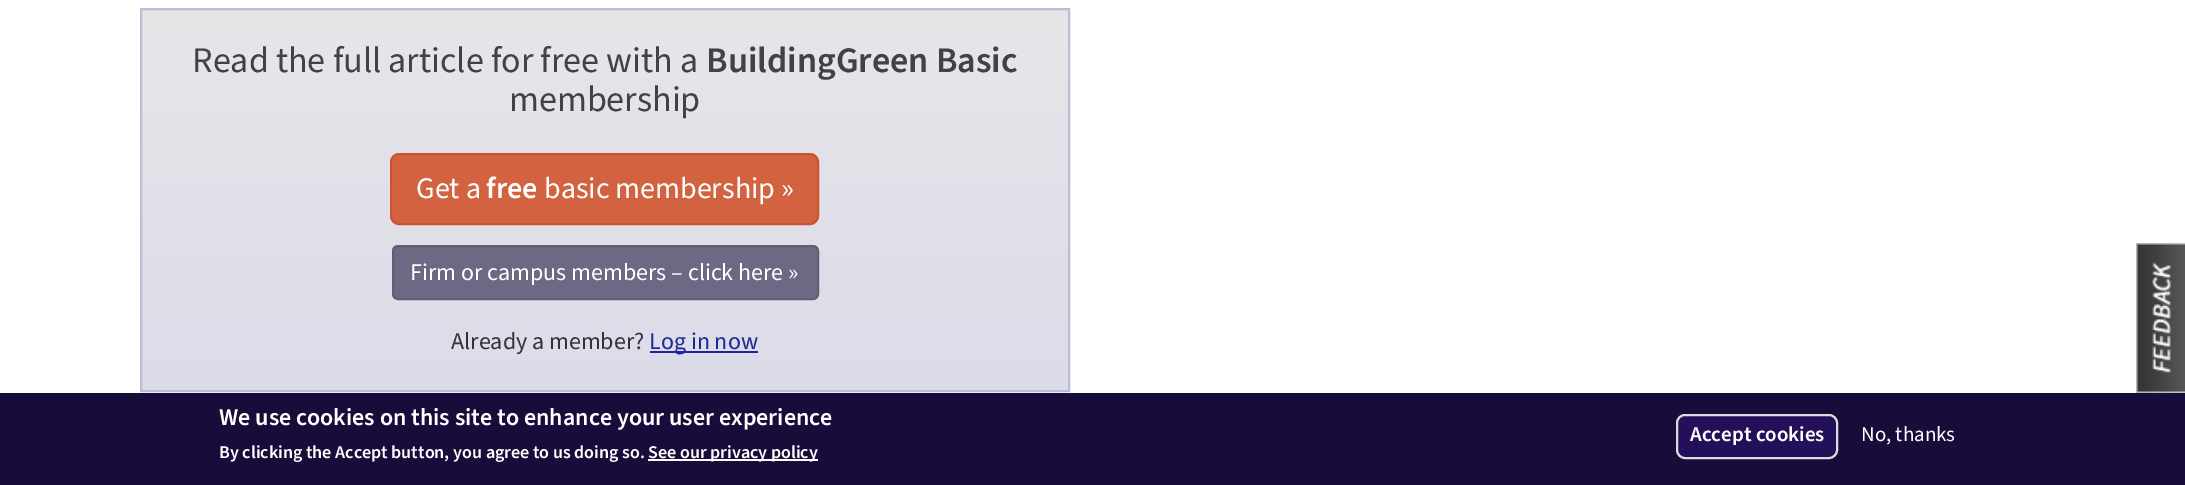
%!PS
<< /PageSize [2185 485] >> setpagedevice
/m/moveto load def
/l/rlineto load def
/z/closepath load def
/f/fill load def
/s/stroke load def
/q/gsave load def
/Q_/grestore load def
/w/setlinewidth load def
/C { dup -16 bitshift 255 div exch dup -8 bitshift 255 and 255 div exch 255 and 255 div setrgbcolor } def
/F { [ exch dup neg 0 0 3 -1 roll 0 0 ] selectfont } def
/T { moveto show } def
/R { rectfill } def
/Q { 5 dict begin { /r /h /w /y /x } { exch def } forall
  x r add y moveto x w add y 2 copy h add r arct x w add y h add x 1 index r arct
  x y h add x y r arct x y 2 copy exch w add exch r arct closepath end } def
/I { 5 dict begin { /h /w /y /x /name } { exch def } forall
  gsave x y translate w h scale
  w h 8 [w 0 0 h 0 0] name (r) file false 3 colorimage grestore end } def
0 485 translate 1 -1 scale
4 setmiterlimit
16#FFFFFF C
0 0 2185 485 R
q 142 10 m 926 0 l 0 380 l -926 0 l z clip newpath
<< /ShadingType 2 /ColorSpace /DeviceRGB /Coords [605 9 605 390] /Extend [true true] /Function << /FunctionType 2 /Domain [0 1] /C0 [.906 .902 .914] /C1 [.863 .859 .91] /N 1 >> >> shfill Q_
16#BEBCD4 C
2 w
141 9 928 382 rectstroke
/SourceSansPro-Regular 36 F
16#44404B C
(Read the full article for free with a) 192 72 T
/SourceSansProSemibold-SemiBold 36 F
(BuildingGreen Basic) 706 72 T
/SourceSansPro-Regular 36 F
(membership) 509 111 T
16#D36340 C
391 154 427 70 8 Q q f Q_
16#CB542F C
s
/SourceSansPro-Regular 30 F
16#FFFFFF C
(Get a) 416 198 T
/SourceSansProSemibold-SemiBold 30 F
(free) 486 198 T
/SourceSansPro-Regular 30 F
(basic membership ») 544 198 T
16#6D6984 C
393 246 425 53 5 Q q f Q_
16#615E76 C
s
/SourceSansPro-Regular 24 F
16#FFFFFF C
(Firm or campus members – click here ») 410 280 T
16#333139 C
(Already a member?) 451 349 T
16#1F2898 C
650 351 108 2 R
(Log in now) 649 349 T
(1.rgb) 2136 243 49 150 I
16#180C3A C
0 393 2185 92 R
/SourceSansProSemibold-SemiBold 24 F
16#FFFFFF C
(We use cookies on this site to enhance your user experience) 219 425 T
/SourceSansProSemibold-SemiBold 18 F
(By clicking the Accept button, you agree to us doing so.) 219 458 T
648 459 170 2 R
(See our privacy policy) 648 458 T
16#230F5A C
1677 415 160 43 8 Q q f Q_
16#DCDCDC C
s
/SourceSansProSemibold-SemiBold 21 F
16#FFFFFF C
(Accept cookies) 1690 441 T
/SourceSansPro-Regular 21 F
(No, thanks) 1861 441 T
showpage
